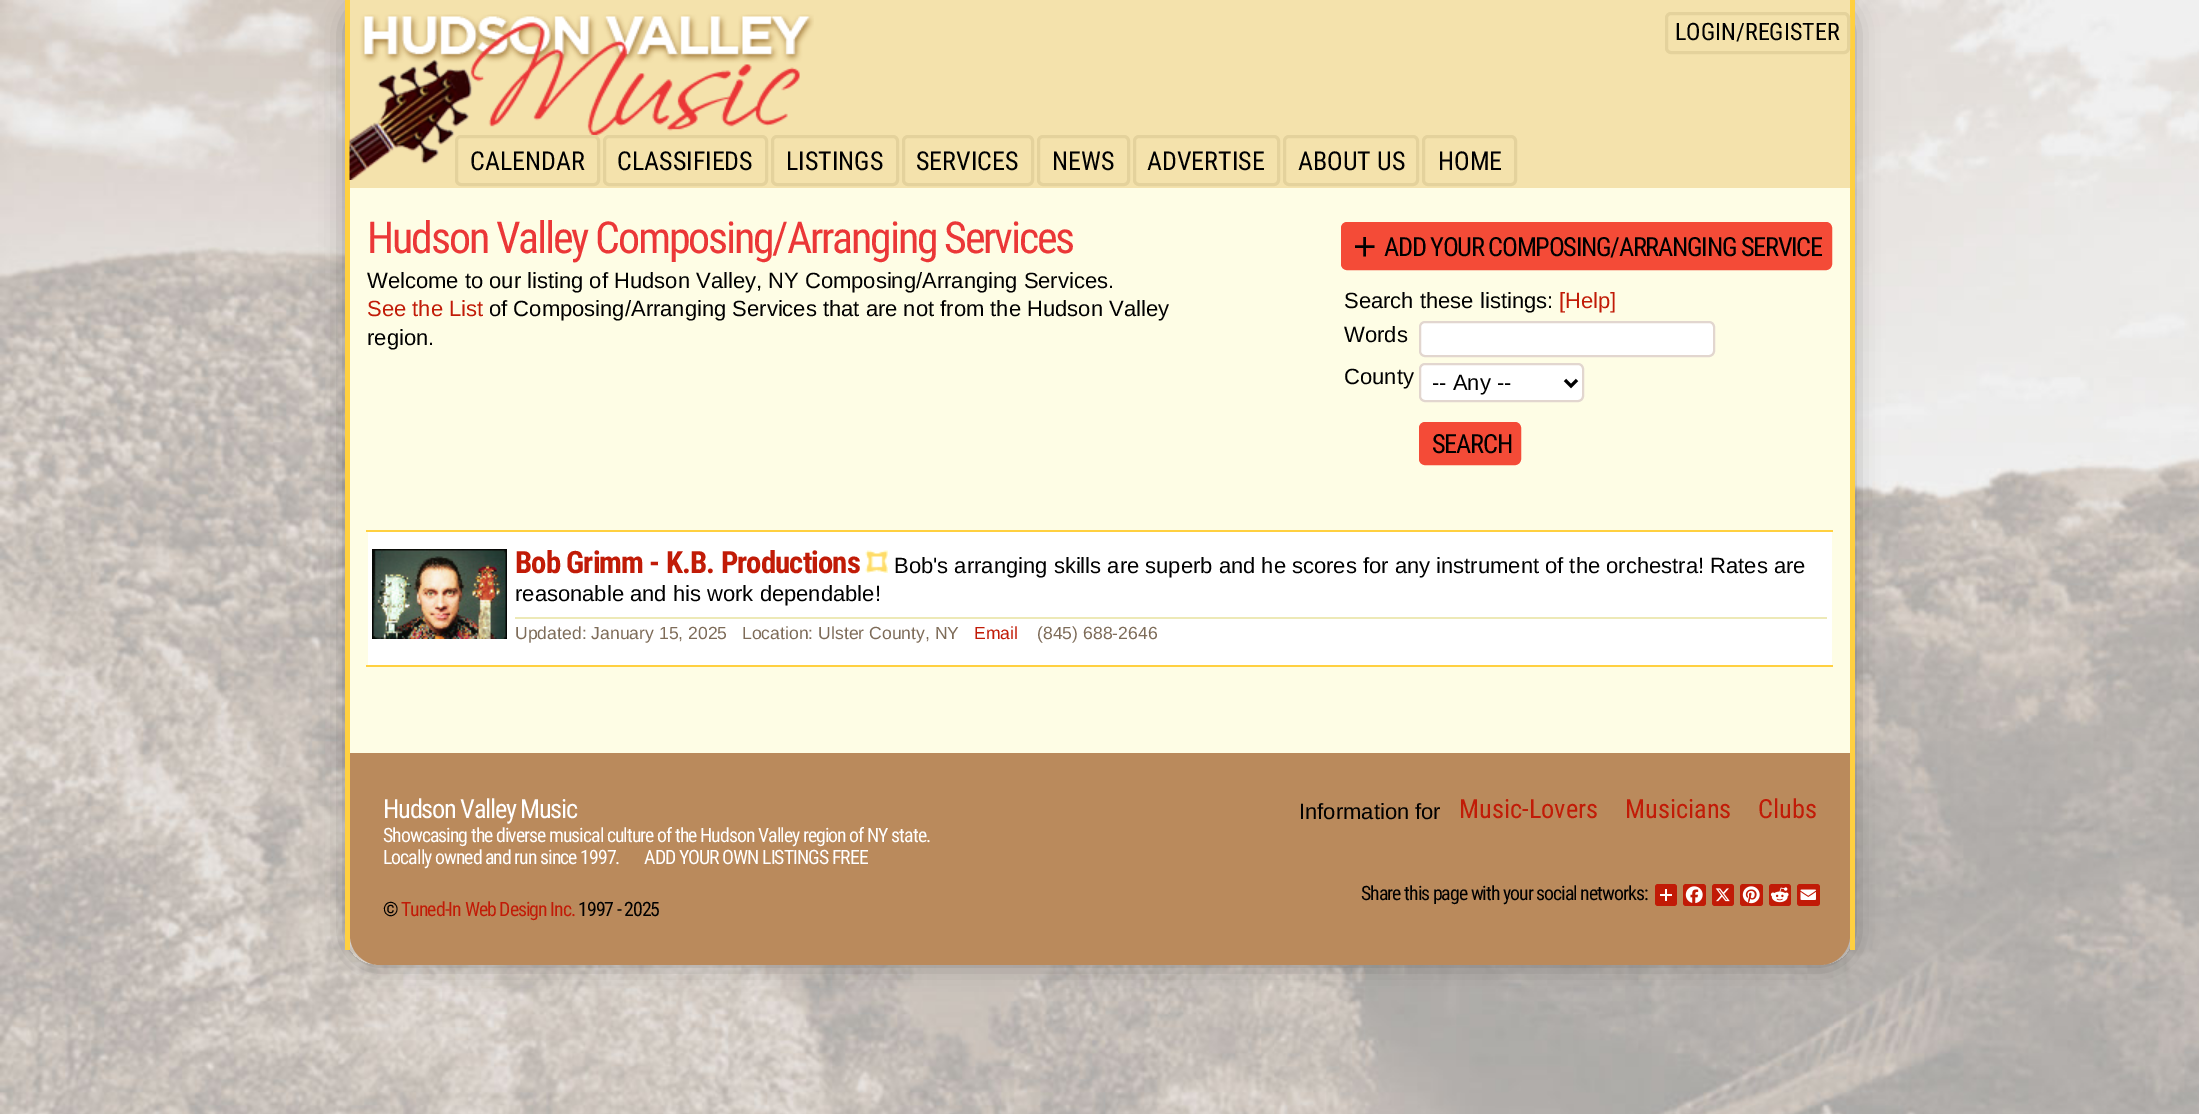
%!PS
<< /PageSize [2199 1114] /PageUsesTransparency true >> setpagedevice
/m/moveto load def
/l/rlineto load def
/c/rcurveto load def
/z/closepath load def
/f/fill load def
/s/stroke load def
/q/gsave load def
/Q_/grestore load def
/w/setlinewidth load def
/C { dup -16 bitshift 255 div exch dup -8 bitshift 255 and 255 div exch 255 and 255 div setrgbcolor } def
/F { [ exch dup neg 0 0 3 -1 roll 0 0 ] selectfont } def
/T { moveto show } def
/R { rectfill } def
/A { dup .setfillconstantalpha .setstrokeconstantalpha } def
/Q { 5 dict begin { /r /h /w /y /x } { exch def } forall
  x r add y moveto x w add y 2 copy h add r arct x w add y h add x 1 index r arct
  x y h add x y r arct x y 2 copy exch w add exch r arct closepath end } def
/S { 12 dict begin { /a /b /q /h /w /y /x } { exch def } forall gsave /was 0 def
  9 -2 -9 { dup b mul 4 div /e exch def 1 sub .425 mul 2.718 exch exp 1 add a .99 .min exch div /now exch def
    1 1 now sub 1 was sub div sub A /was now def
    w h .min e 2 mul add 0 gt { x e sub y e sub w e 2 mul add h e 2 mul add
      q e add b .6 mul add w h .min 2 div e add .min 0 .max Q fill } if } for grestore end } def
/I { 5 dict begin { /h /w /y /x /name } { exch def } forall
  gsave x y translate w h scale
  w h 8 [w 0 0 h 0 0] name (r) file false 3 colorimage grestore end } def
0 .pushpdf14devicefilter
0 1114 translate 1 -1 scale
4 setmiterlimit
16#FFFFFF C
0 0 2199 1114 R
(1.rgb) 0 0 2199 1114 I
q
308 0 m 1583 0 l 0 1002 l -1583 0 l z 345 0 m 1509 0 l 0 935 l 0 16.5 -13.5 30 -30 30 c -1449 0 l -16.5 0 -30 -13.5 -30 -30 c z eoclip newpath
16#000000 C
345 0 1509 965 30 12 .3 S
Q_
16#FFD040 C
1850 0 5 950 R
345 0 5 950 R
16#F4E2AC C
350 0 1500 188 R
(2.rgb) 349 14 465 166 I
16#E4D29C C
3 w
1666.5 13.5 182 39 4.5 Q s
/RobotoCondensed-Regular 24 F
16#000000 C
(LOGIN/REGISTER) 1675 40 T
16#E4D29C C
456.5 136.5 142 48 4.5 Q s
/RobotoCondensed-Regular 26 F
16#000000 C
(CALENDAR) 470 170 T
16#E4D29C C
604.5 136.5 162 48 4.5 Q s
16#000000 C
(CLASSIFIEDS) 617 170 T
16#E4D29C C
772.5 136.5 125 48 4.5 Q s
16#000000 C
(LISTINGS) 786 170 T
16#E4D29C C
903.5 136.5 129 48 4.5 Q s
16#000000 C
(SERVICES) 916 170 T
16#E4D29C C
1038.5 136.5 90 48 4.5 Q s
16#000000 C
(NEWS) 1052 170 T
16#E4D29C C
1134.5 136.5 144 48 4.5 Q s
16#000000 C
(ADVERTISE) 1147 170 T
16#E4D29C C
1284.5 136.5 133 48 4.5 Q s
16#000000 C
(ABOUT US) 1298 170 T
16#E4D29C C
1423.5 136.5 92 48 4.5 Q s
16#000000 C
(HOME) 1438 170 T
16#FEFDE5 C
350 188 1500 565 R
/RobotoCondensed-Regular 44 F
16#EB3737 C
367 253 m -2.2 0 (Hudson Valley Composing/Arranging Services) ashow
/LiberationSans-Regular 22 F
16#000000 C
(Welcome to our listing of Hudson Valley, NY Composing/Arranging Services.) 367 288 T
16#C11B07 C
(See the List) 367 316 T
16#000000 C
(of Composing/Arranging Services that are not from the Hudson Valley) 489 316 T
(region.) 367 345 T
16#F44B37 C
1342.5 223.5 488 45 4.5 Q q f Q_
s
/LiberationSans-Regular 40 F
16#000000 C
1353 260 m -1.3 0 (+) ashow
/RobotoCondensed-Regular 26.4 F
1384 256 m -1.3 0 (ADD YOUR COMPOSING/ARRANGING SERVICE) ashow
/LiberationSans-Regular 22 F
(Search these listings:) 1344 308 T
16#C11B07 C
([Help]) 1559 308 T
16#000000 C
(Words) 1344 342 T
16#FFFFFF C
1420 322 294 34 5 Q q f Q_
16#E2D6CF C
2 w
s
16#000000 C
(County) 1344 384 T
16#FFFFFF C
1420 364 163 37 5 Q q f Q_
16#E2D6CF C
s
16#000000 C
3 w
1565 380 m 6 6 l 6 -6 l s
(-- Any --) 1432 390 T
16#F44B37 C
1420.5 423.5 99 40 4.5 Q q f Q_
s
/RobotoCondensed-Regular 26.4 F
16#000000 C
1432 453 m -1.3 0 (SEARCH) ashow
16#FFD040 C
366 530 1467 2 R
366 665 1467 2 R
16#FFFFFF C
368 532 1464 133 R
(3.rgb) 372 549 135 90 I
/RobotoCondensed-Bold 30.75 F
16#C11B07 C
515 573 m -.9 0 (Bob Grimm - K.B. Productions) ashow
(4.rgb) 865 550 23 23 I
/LiberationSans-Regular 22 F
16#000000 C
(Bob's arranging skills are superb and he scores for any instrument of the orchestra! Rates are) 894 573 T
(reasonable and his work dependable!) 515 601 T
16#EDE9B7 C
515 617 1312 2 R
/LiberationSans-Regular 17.6 F
16#7E6C59 C
(Updated: January 15, 2025   Location: Ulster County, NY) 515 639 T
16#C11B07 C
(Email) 974 639 T
16#7E6C59 C
(\(845\) 688-2646) 1037 639 T
16#BA8A5C C
350 753 m 1500 0 l 0 182 l 0 16.5 -13.5 30 -30 30 c -1440 0 l -16.5 0 -30 -13.5 -30 -30 c z f
/RobotoCondensed-Regular 26.4 F
16#FFFFFF C
383 818 m -1.3 0 (Hudson Valley Music) ashow
/RobotoCondensed-Regular 19.8 F
383 842 m -1 0 (Showcasing the diverse musical culture of the Hudson Valley region of NY state.) ashow
383 864 m -1 0 (Locally owned and run since 1997.       ADD YOUR OWN LISTINGS FREE) ashow
16#000000 C
383 916 m -1 0 (©) ashow
16#C11B07 C
401 916 m -1 0 (Tuned-In Web Design Inc.) ashow
16#000000 C
578 916 m -1 0 (1997 - 2025) ashow
/LiberationSans-Regular 22 F
(Information for) 1299 819 T
/RobotoCondensed-Regular 26.4 F
16#C11B07 C
(Music-Lovers) 1459 818 T
(Musicians) 1625 818 T
(Clubs) 1758 818 T
/RobotoCondensed-Regular 19.8 F
16#000000 C
1361 900 m -1 0 (Share this page with your social networks:) ashow
16#C11B07 C
1655 884 22 22 3 Q f
16#FFFFFF C
1665 889 2 12 R
1660 894 12 2 R
16#C11B07 C
1683 884 23 22 3 Q f
(5.rgb) 1685 886 18 18 I
1712 884 22 22 3 Q f
(6.rgb) 1715 888 15 14 I
1740 884 23 22 3 Q f
(7.rgb) 1742 886 18 18 I
1769 884 22 22 3 Q f
(8.rgb) 1770 887 19 16 I
1797 884 23 22 3 Q f
(9.rgb) 1800 889 16 11 I
.poppdf14devicefilter showpage
